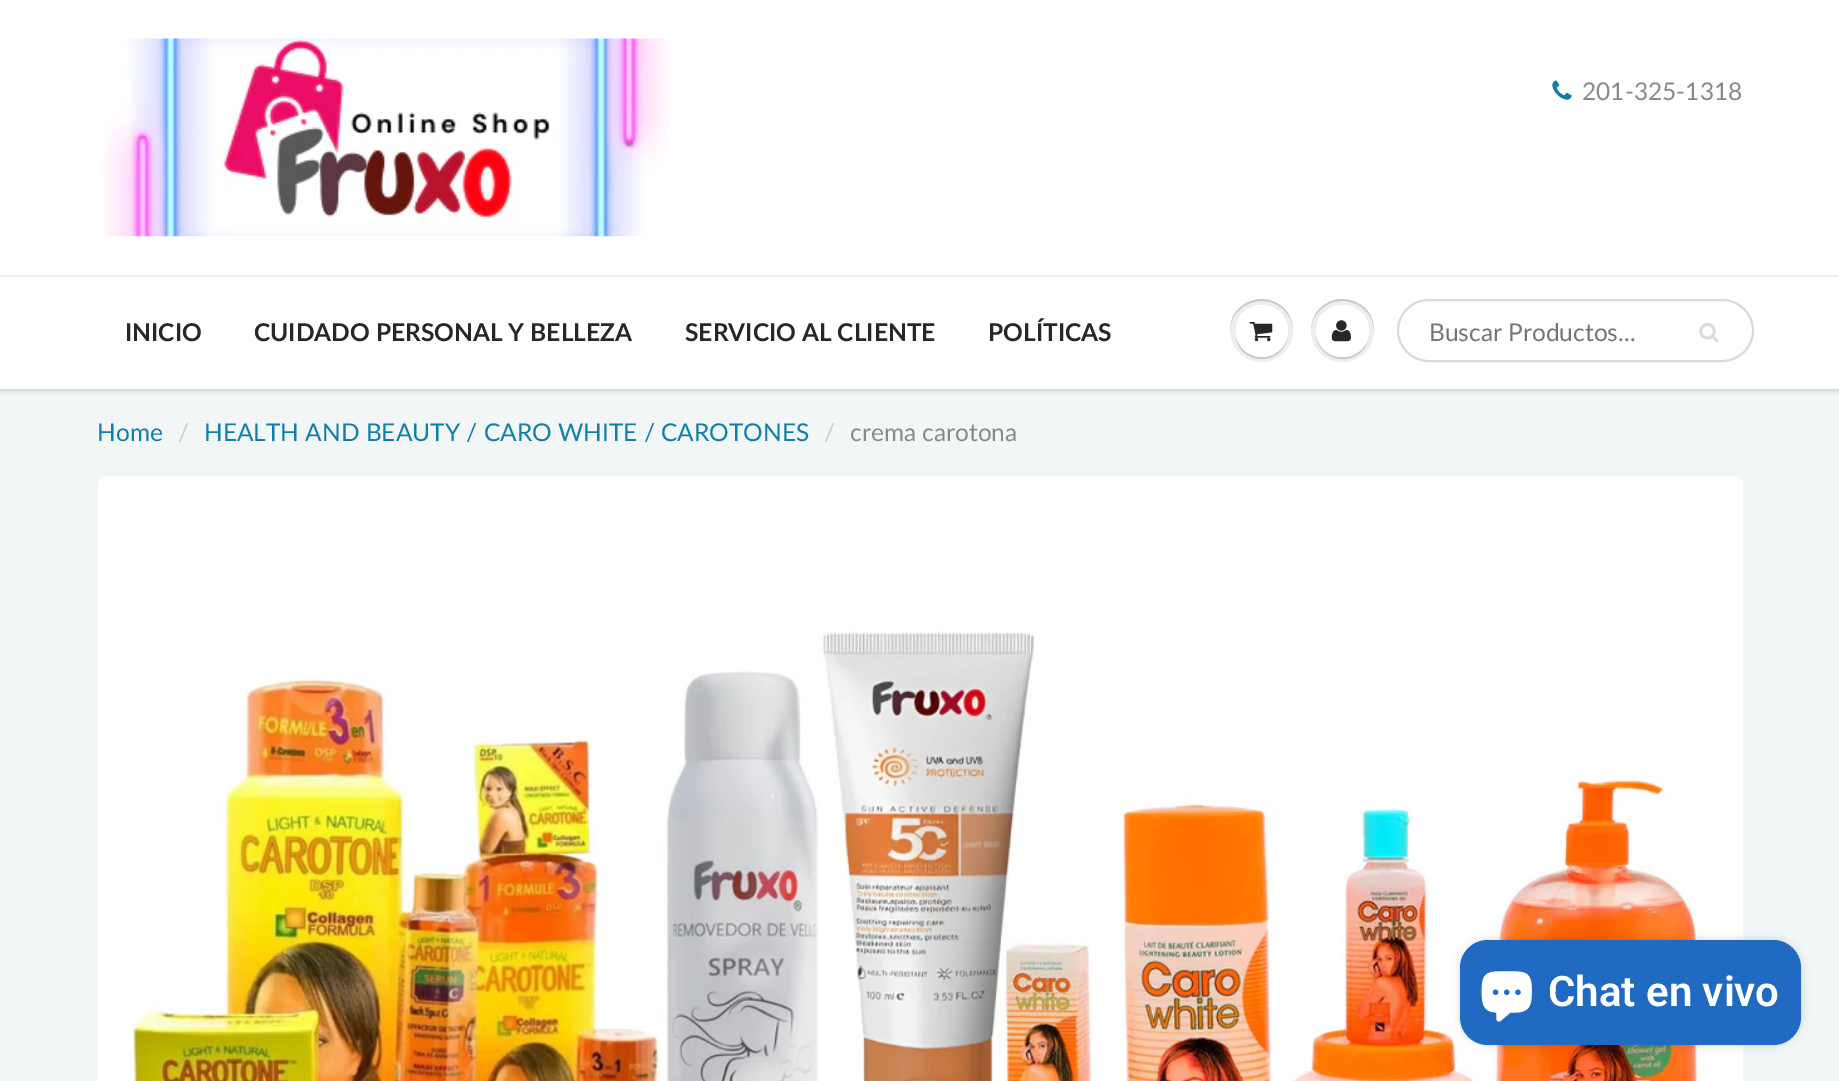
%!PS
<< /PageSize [1839 1081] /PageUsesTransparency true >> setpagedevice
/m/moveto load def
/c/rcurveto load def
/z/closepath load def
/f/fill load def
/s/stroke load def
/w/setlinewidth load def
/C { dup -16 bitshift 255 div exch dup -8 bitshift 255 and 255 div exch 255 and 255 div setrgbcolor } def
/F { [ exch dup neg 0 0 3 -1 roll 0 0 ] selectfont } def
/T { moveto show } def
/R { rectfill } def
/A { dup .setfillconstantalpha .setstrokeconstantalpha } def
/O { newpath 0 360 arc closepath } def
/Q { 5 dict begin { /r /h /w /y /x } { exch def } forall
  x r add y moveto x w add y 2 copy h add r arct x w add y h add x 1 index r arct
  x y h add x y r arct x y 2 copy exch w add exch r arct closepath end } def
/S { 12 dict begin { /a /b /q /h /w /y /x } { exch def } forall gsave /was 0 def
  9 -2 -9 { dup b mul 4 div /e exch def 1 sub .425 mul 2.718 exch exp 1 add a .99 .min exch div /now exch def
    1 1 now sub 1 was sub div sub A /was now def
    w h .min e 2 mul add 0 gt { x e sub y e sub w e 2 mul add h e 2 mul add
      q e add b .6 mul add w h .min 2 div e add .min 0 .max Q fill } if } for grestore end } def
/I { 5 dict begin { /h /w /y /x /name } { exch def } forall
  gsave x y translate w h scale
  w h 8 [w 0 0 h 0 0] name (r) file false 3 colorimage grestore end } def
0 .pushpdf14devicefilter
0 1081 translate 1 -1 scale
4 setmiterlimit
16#FFFFFF C
0 0 1839 1081 R
(1.rgb) 102 38 568 199 I
(2.rgb) 1552 80 20 20 I
/Lato-Regular 24.5 F
16#898989 C
(201-325-1318) 1582 100 T
16#F3F6F6 C
0 389 1839 692 R
16#0B191C C
0 278 1839 114 0 2 .12 S
16#FFFFFF C
0 277 1839 112 R
16#ECEFEF C
0 275 1839 2 R
/Lato-Bold 24.5 F
16#282727 C
(INICIO) 125 341 T
(CUIDADO PERSONAL Y BELLEZA) 254 341 T
(SERVICIO AL CLIENTE) 685 341 T
(POLÍTICAS) 988 341 T
16#EDEFEF C
1261.5 330.5 31.5 O f
16#C9CBCB C
1262 301 m 17 0 31 14 31 30 c 0 -6 -2 -13 -5 -18 c -18 -26 -59 -13 -58 18 c 0 -16 14 -30 32 -30 c z 1236 338 m 6 31 53 27 52 -7 c -1 30 -44 35 -52 7 c z f
16#FFFFFF C
1262 331 26 O f
1262 306 m 14 0 26 12 26 26 c 0 -26 -33 -37 -48 -16 c -3 5 -4 10 -4 15 c 0 -13 11 -25 26 -25 c z f
(3.rgb) 1249 322 24 20 I
16#EDEFEF C
1342.5 330.5 31.5 O f
16#C9CBCB C
1342 301 m 18 0 32 14 32 30 c 1 -31 -40 -44 -58 -18 c -3 5 -5 12 -5 18 c 0 -16 14 -30 31 -30 c z f
1316 332 m -1 29 40 38 51 11 c 2 -6 3 -13 1 -19 c 6 25 -25 44 -44 26 c -5 -5 -8 -12 -8 -18 c z f
16#FFFFFF C
1316 305 53 52 26 Q f
1342 306 m 20 0 32 22 23 39 c 16 -26 -19 -54 -41 -32 c -5 5 -8 11 -8 19 c 0 -14 12 -26 26 -26 c z f
(4.rgb) 1331 320 20 22 I
16#D7DBDB C
2 w
1398 300 355 61 30.5 Q s
/Lato-Regular 24.5 F
16#757575 C
(Buscar Productos...) 1429 341 T
(5.rgb) 1699 323 20 20 I
16#107FA8 C
(Home) 97 441 T
16#CCCCCC C
(/) 178 441 T
16#107FA8 C
(HEALTH AND BEAUTY / CARO WHITE / CAROTONES) 204 441 T
16#CCCCCC C
(/) 824 441 T
16#898989 C
(crema carotona) 850 441 T
16#FFFFFF C
9 w
102.5 480.5 1636 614 4.5 Q s
(6.rgb) 107 485 1627 596 I
16#000000 C
1460 940 341 105 28 4.5 .15 S
16#206BC1 C
1460 940 341 105 28 Q f
(7.rgb) 1481 971 51 51 I
/Roboto-SemiBold 42 F
16#FFFFFF C
(Chat en vivo) 1548 1006 T
.poppdf14devicefilter showpage
